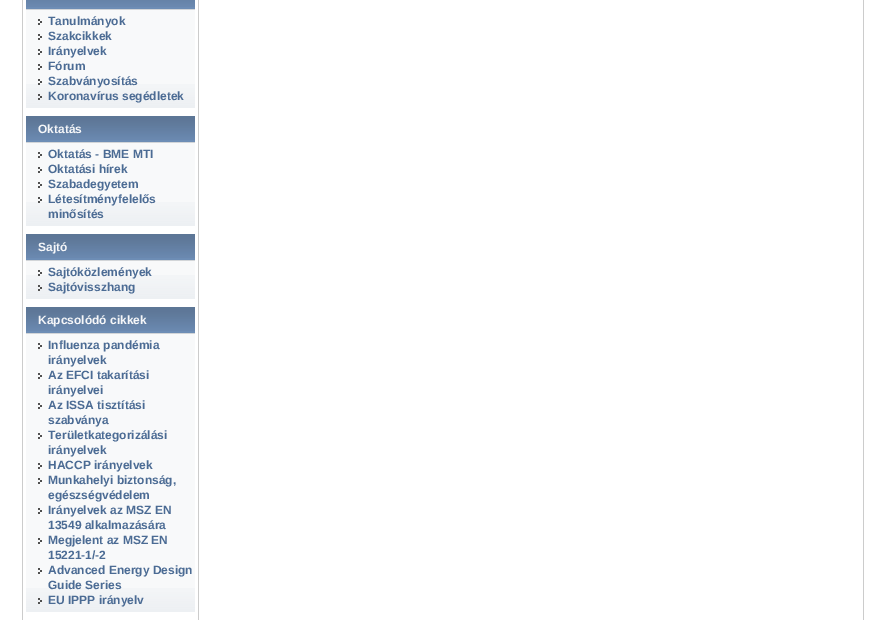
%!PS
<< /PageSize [889 640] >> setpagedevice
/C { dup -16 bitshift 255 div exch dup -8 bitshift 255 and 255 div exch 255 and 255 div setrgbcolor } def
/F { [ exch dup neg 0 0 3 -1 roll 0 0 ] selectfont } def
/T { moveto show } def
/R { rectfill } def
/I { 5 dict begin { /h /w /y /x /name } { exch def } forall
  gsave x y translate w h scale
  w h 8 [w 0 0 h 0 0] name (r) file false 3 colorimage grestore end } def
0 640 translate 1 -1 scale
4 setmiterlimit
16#FFFFFF C
0 0 889 640 R
16#CCCCCC C
22 0 1 620 R
16#F8F9FA C
26 10 169 74 R
(1.rgb) 26 84 169 24 I
16#6D8DB5 C
26 7 169 2 R
(2.rgb) 26 0 169 7 I
16#D2D5D8 C
26 9 169 1 R
(3.rgb) 38 19 4 6 I
/LiberationSans-Bold 12 F
16#4B6B94 C
(Tanulmányok) 48 25 T
(3.rgb) 38 34 4 6 I
(Szakcikkek) 48 40 T
(3.rgb) 38 49 4 6 I
(Irányelvek) 48 55 T
(3.rgb) 38 64 4 6 I
(Fórum) 48 70 T
(4.rgb) 38 79 4 6 I
(Szabványosítás) 48 85 T
(5.rgb) 38 94 4 6 I
(Koronavírus segédletek) 48 100 T
16#F8F9FA C
26 143 169 59 R
(1.rgb) 26 202 169 24 I
16#6D8DB5 C
26 140 169 2 R
(6.rgb) 26 116 169 24 I
16#D2D5D8 C
26 142 169 1 R
16#F6F7F9 C
(Oktatás) 38 133 T
(3.rgb) 38 152 4 6 I
16#4B6B94 C
(Oktatás - BME MTI) 48 158 T
(3.rgb) 38 167 4 6 I
(Oktatási hírek) 48 173 T
(3.rgb) 38 182 4 6 I
(Szabadegyetem) 48 188 T
(4.rgb) 38 197 4 6 I
(Létesítményfelelős) 48 203 T
(minősítés) 48 218 T
16#F8F9FA C
26 261 169 14 R
(1.rgb) 26 275 169 24 I
16#6D8DB5 C
26 258 169 2 R
(6.rgb) 26 234 169 24 I
16#D2D5D8 C
26 260 169 1 R
16#F6F7F9 C
(Sajtó) 38 251 T
(4.rgb) 38 270 4 6 I
16#4B6B94 C
(Sajtóközlemények) 48 276 T
(5.rgb) 38 285 4 6 I
(Sajtóvisszhang) 48 291 T
16#F8F9FA C
26 334 169 254 R
(1.rgb) 26 588 169 24 I
16#6D8DB5 C
26 331 169 2 R
(6.rgb) 26 307 169 24 I
16#D2D5D8 C
26 333 169 1 R
16#F6F7F9 C
(Kapcsolódó cikkek) 38 324 T
(3.rgb) 38 343 4 6 I
16#4B6B94 C
(Influenza pandémia) 48 349 T
(irányelvek) 48 364 T
(3.rgb) 38 373 4 6 I
(Az EFCI takarítási) 48 379 T
(irányelvei) 48 394 T
(3.rgb) 38 403 4 6 I
(Az ISSA tisztítási) 48 409 T
(szabványa) 48 424 T
(3.rgb) 38 433 4 6 I
(Területkategorizálási) 48 439 T
(irányelvek) 48 454 T
(3.rgb) 38 463 4 6 I
(HACCP irányelvek) 48 469 T
(3.rgb) 38 478 4 6 I
(Munkahelyi biztonság,) 48 484 T
(egészségvédelem) 48 499 T
(3.rgb) 38 508 4 6 I
(Irányelvek az MSZ EN) 48 514 T
(13549 alkalmazására) 48 529 T
(3.rgb) 38 538 4 6 I
(Megjelent az MSZ EN) 48 544 T
(15221-1/-2) 48 559 T
(3.rgb) 38 568 4 6 I
(Advanced Energy Design) 48 574 T
(Guide Series) 48 589 T
(5.rgb) 38 598 4 6 I
(EU IPPP irányelv) 48 604 T
16#CCCCCC C
198 0 1 620 R
863 0 1 620 R
showpage
